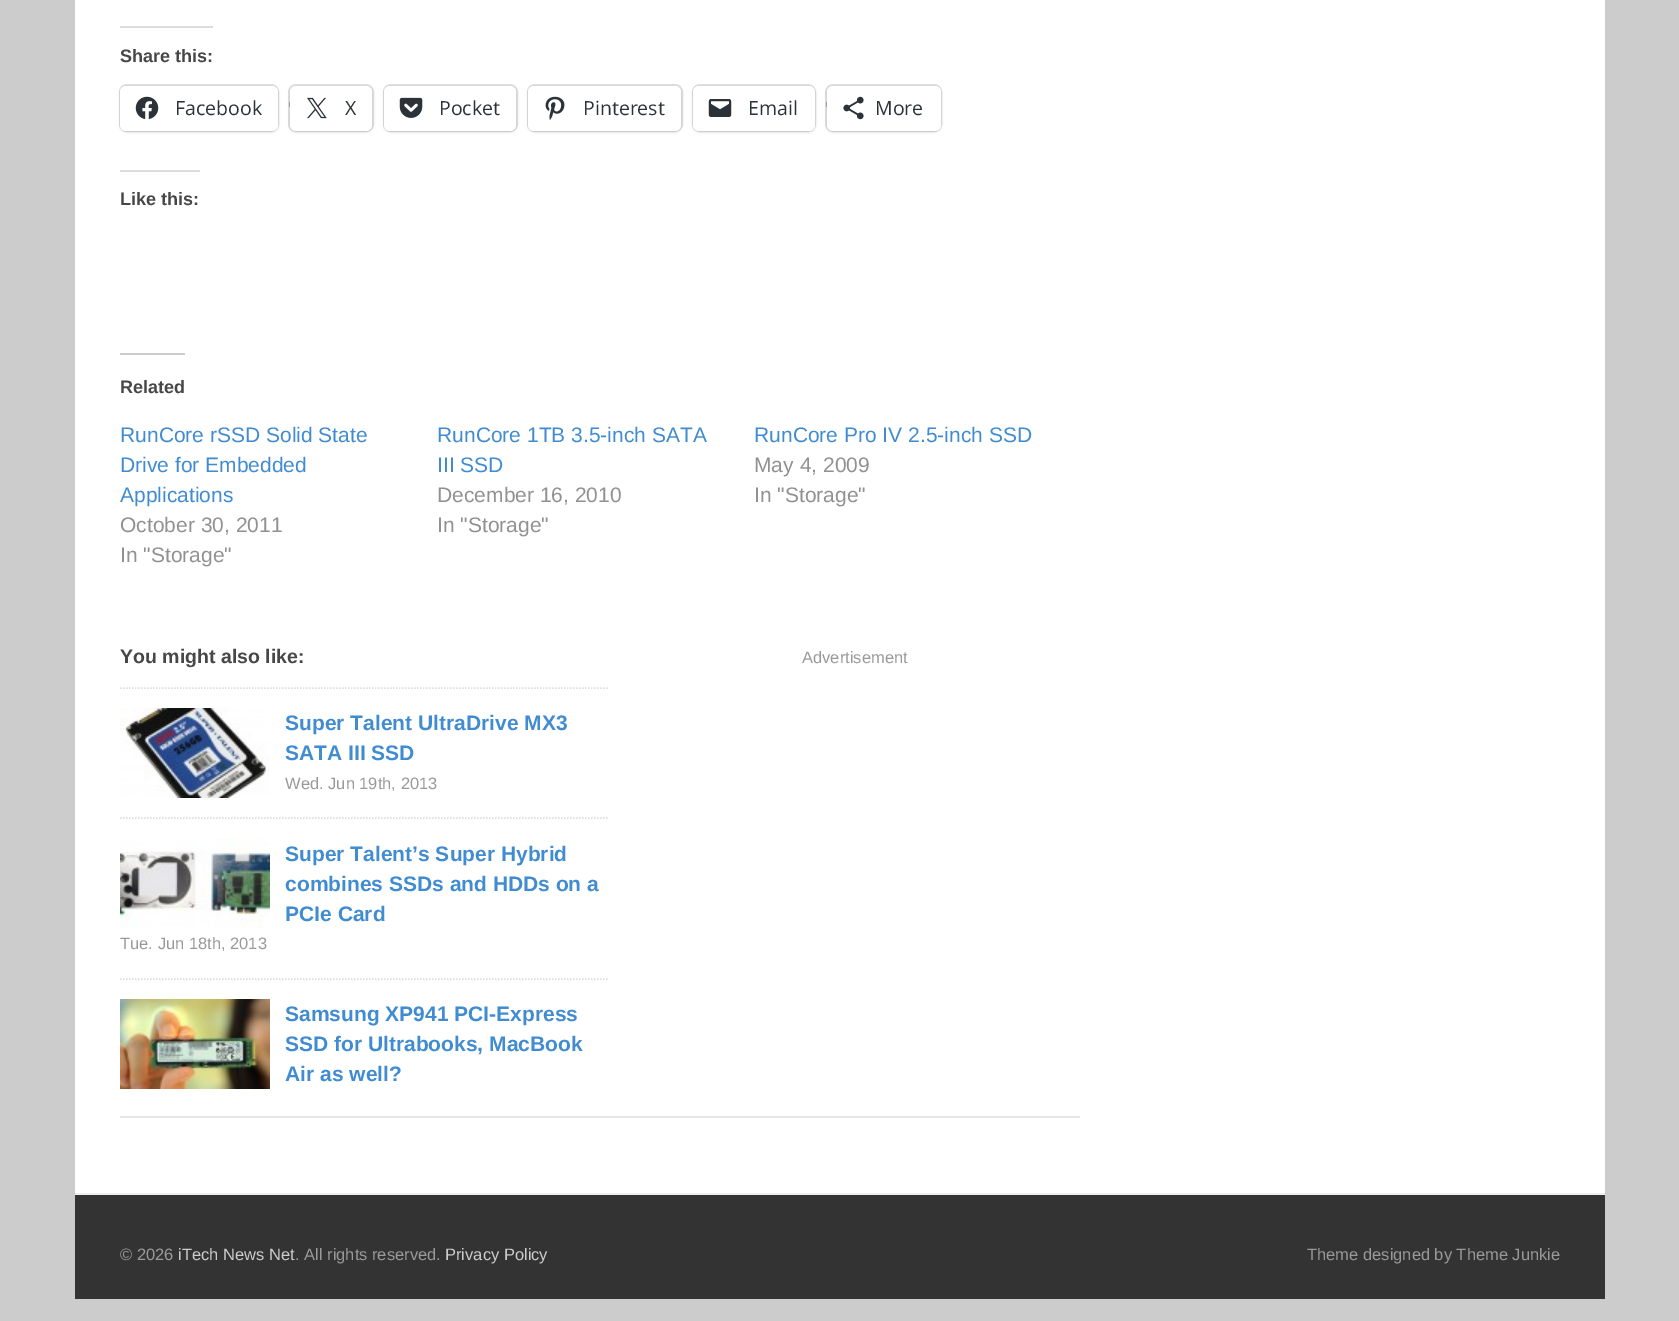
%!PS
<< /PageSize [1679 1321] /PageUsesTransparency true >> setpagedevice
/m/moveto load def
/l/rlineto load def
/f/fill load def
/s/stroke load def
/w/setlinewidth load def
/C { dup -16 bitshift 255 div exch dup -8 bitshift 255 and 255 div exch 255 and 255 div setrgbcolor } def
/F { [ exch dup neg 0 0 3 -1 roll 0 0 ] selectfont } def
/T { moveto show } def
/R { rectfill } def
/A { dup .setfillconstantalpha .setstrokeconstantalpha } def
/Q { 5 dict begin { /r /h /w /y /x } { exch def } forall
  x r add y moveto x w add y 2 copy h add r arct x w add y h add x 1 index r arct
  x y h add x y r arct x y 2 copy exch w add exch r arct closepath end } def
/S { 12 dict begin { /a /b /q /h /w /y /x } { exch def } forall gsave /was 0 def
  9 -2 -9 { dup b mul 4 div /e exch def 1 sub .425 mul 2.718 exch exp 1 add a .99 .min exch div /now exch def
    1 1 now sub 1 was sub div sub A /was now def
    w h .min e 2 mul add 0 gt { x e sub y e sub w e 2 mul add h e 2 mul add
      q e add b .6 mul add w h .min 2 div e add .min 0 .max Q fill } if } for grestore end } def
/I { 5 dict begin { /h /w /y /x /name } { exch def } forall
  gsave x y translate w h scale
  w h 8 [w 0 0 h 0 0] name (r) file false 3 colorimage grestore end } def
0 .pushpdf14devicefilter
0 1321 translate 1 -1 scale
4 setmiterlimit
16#CCCCCC C
0 0 1679 1321 R
16#FFFFFF C
75 0 1530 1193 R
16#DCDCDE C
120 26 93 2 R
/LiberationSans-Bold 18 F
16#474747 C
(Share this:) 120 62 T
0.12 A
16#000000 C
2 w
120 85 158 46 7 Q s
1 A
120 87 158 45 6 1.5 .12 S
16#FFFFFF C
120 86 158 45 6 Q f
(1.rgb) 135 96 24 23 I
/OpenSans-Regular 19.5 F
16#2C3338 C
(Facebook) 175 115 T
16#BBBBBB C
289 102 5 5 R
0.12 A
16#000000 C
289 85 84 46 7 Q s
1 A
290 87 82 45 6 1.5 .12 S
16#FFFFFF C
290 86 82 45 6 Q f
(2.rgb) 307 97 20 22 I
16#2C3338 C
(X) 345 115 T
0.12 A
16#000000 C
384 85 133 46 7 Q s
1 A
384 87 132 45 6 1.5 .12 S
16#FFFFFF C
384 86 132 45 6 Q f
(3.rgb) 399 97 24 21 I
16#2C3338 C
(Pocket) 439 115 T
0.12 A
16#000000 C
528 85 154 46 7 Q s
1 A
528 87 153 45 6 1.5 .12 S
16#FFFFFF C
528 86 153 45 6 Q f
(4.rgb) 545 96 20 24 I
16#2C3338 C
(Pinterest) 583 115 T
0.12 A
16#000000 C
693 85 122 46 7 Q s
1 A
693 87 122 45 6 1.5 .12 S
16#FFFFFF C
693 86 122 45 6 Q f
(5.rgb) 708 99 24 18 I
16#2C3338 C
(Email) 748 115 T
16#BBBBBB C
826 102 7 5 R
0.12 A
16#000000 C
826 85 115 46 7 Q s
1 A
827 87 114 45 6 1.5 .12 S
16#FFFFFF C
827 86 114 45 6 Q f
(6.rgb) 843 96 21 24 I
16#2C3338 C
(More) 875 115 T
16#DCDCDE C
120 170 80 2 R
/LiberationSans-Bold 18 F
16#474747 C
(Like this:) 120 205 T
16#CCCCCC C
120 353 65 2 R
16#474747 C
(Related) 120 393 T
/LiberationSans-Regular 21 F
16#418CD1 C
(RunCore rSSD Solid State) 120 442 T
(Drive for Embedded) 120 472 T
(Applications) 120 502 T
16#919191 C
(October 30, 2011) 120 532 T
(In "Storage") 120 562 T
16#418CD1 C
(RunCore 1TB 3.5-inch SATA) 437 442 T
(III SSD) 437 472 T
16#919191 C
(December 16, 2010) 437 502 T
(In "Storage") 437 532 T
16#418CD1 C
(RunCore Pro IV 2.5-inch SSD) 754 442 T
16#919191 C
(May 4, 2009) 754 472 T
(In "Storage") 754 502 T
16#E6E6E6 C
120 1116 960 2 R
/LiberationSans-Bold 19.5 F
16#474747 C
(You might also like:) 120 663 T
16#DDDDDD C
1.5 w
[1.5 1.5] 0 setdash
120 688 m 487.5 0 l s
(7.rgb) 120 708 150 90 I
/LiberationSans-Bold 21 F
16#418CD1 C
(Super Talent UltraDrive MX3) 285 730 T
(SATA III SSD) 285 760 T
/LiberationSans-Regular 16.5 F
16#999999 C
(Wed. Jun 19th, 2013) 285 789 T
16#DDDDDD C
120 818 m 487.5 0 l s
(8.rgb) 120 838 150 90 I
/LiberationSans-Bold 21 F
16#418CD1 C
(Super Talent’s Super Hybrid) 285 861 T
(combines SSDs and HDDs on a) 285 891 T
(PCIe Card) 285 921 T
/LiberationSans-Regular 16.5 F
16#999999 C
(Tue. Jun 18th, 2013) 120 949 T
16#DDDDDD C
120 979 m 487.5 0 l s
(9.rgb) 120 999 150 90 I
/LiberationSans-Bold 21 F
16#418CD1 C
(Samsung XP941 PCI-Express) 285 1021 T
(SSD for Ultrabooks, MacBook) 285 1051 T
(Air as well?) 285 1081 T
/LiberationSans-Regular 16.5 F
16#999999 C
(Advertisement) 802 663 T
16#333333 C
75 1195 1530 104 R
16#EFEFEF C
75 1193 1530 2 R
16#999999 C
(© 2026) 120 1260 T
16#CCCCCC C
(iTech News Net) 178 1260 T
16#999999 C
(. All rights reserved.) 295 1260 T
16#CCCCCC C
(Privacy Policy) 445 1260 T
16#999999 C
(Theme designed by Theme Junkie) 1307 1260 T
.poppdf14devicefilter showpage
